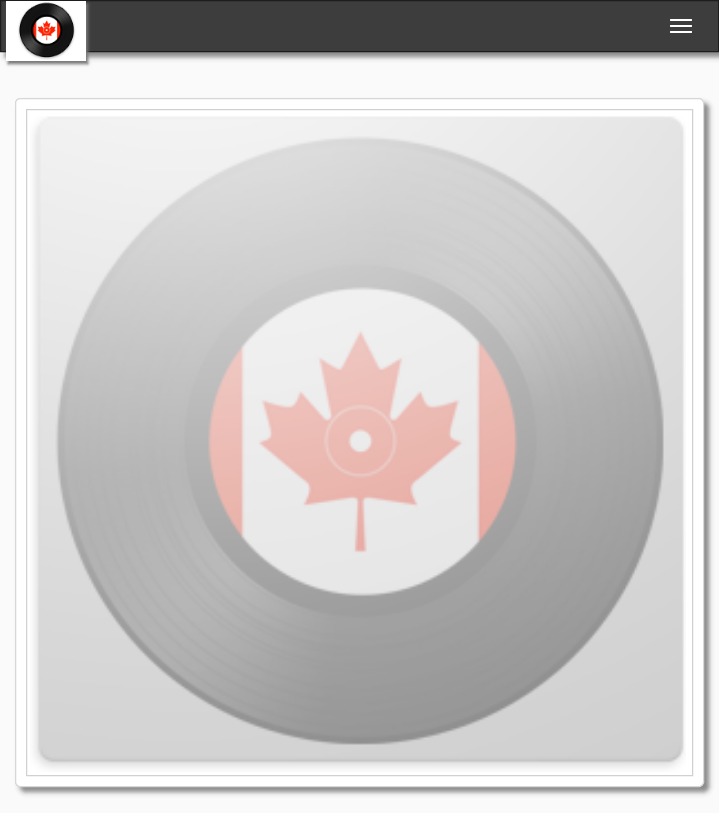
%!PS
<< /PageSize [719 813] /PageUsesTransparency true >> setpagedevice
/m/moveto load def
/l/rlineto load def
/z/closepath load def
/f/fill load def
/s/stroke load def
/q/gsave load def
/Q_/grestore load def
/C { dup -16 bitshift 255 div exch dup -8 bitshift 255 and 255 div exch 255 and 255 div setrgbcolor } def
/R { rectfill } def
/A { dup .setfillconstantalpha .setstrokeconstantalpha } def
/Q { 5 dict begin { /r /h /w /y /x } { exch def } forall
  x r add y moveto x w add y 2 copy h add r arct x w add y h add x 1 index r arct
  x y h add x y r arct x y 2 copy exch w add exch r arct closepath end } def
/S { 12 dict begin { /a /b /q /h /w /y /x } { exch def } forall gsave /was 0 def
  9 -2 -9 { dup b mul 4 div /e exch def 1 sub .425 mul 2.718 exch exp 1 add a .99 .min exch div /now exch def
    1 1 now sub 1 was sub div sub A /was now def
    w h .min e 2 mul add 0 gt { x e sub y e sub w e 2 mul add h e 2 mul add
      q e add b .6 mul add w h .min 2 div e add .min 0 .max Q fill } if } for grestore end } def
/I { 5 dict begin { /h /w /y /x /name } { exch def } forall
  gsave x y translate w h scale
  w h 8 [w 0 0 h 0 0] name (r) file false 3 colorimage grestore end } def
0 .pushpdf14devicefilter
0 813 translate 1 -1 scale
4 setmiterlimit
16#FAFAFA C
0 0 719 813 R
16#888888 C
5 5 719 52 0 2.5 1 S
16#3D3D3D C
.5 .5 m 718 0 l 0 51 l -718 0 l z q f Q_
16#1D1D1D C
s
16#777777 C
8 4 80 60 0 1.5 1 S
16#FFFFFF C
6 1 80 60 R
(1.rgb) 18 2 58 58 I
670 19 22 2 1 Q f
670 25 22 2 1 Q f
670 31 22 2 1 Q f
16#888888 C
20 103 689 689 5 2.5 1 S
16#FFFFFF C
15.5 98.5 688 688 4.5 Q q f Q_
16#D7D7D7 C
s
16#D1D1D1 C
26.5 109.5 666 666 rectstroke
(2.rgb) 30 116 656 656 I
.poppdf14devicefilter showpage
